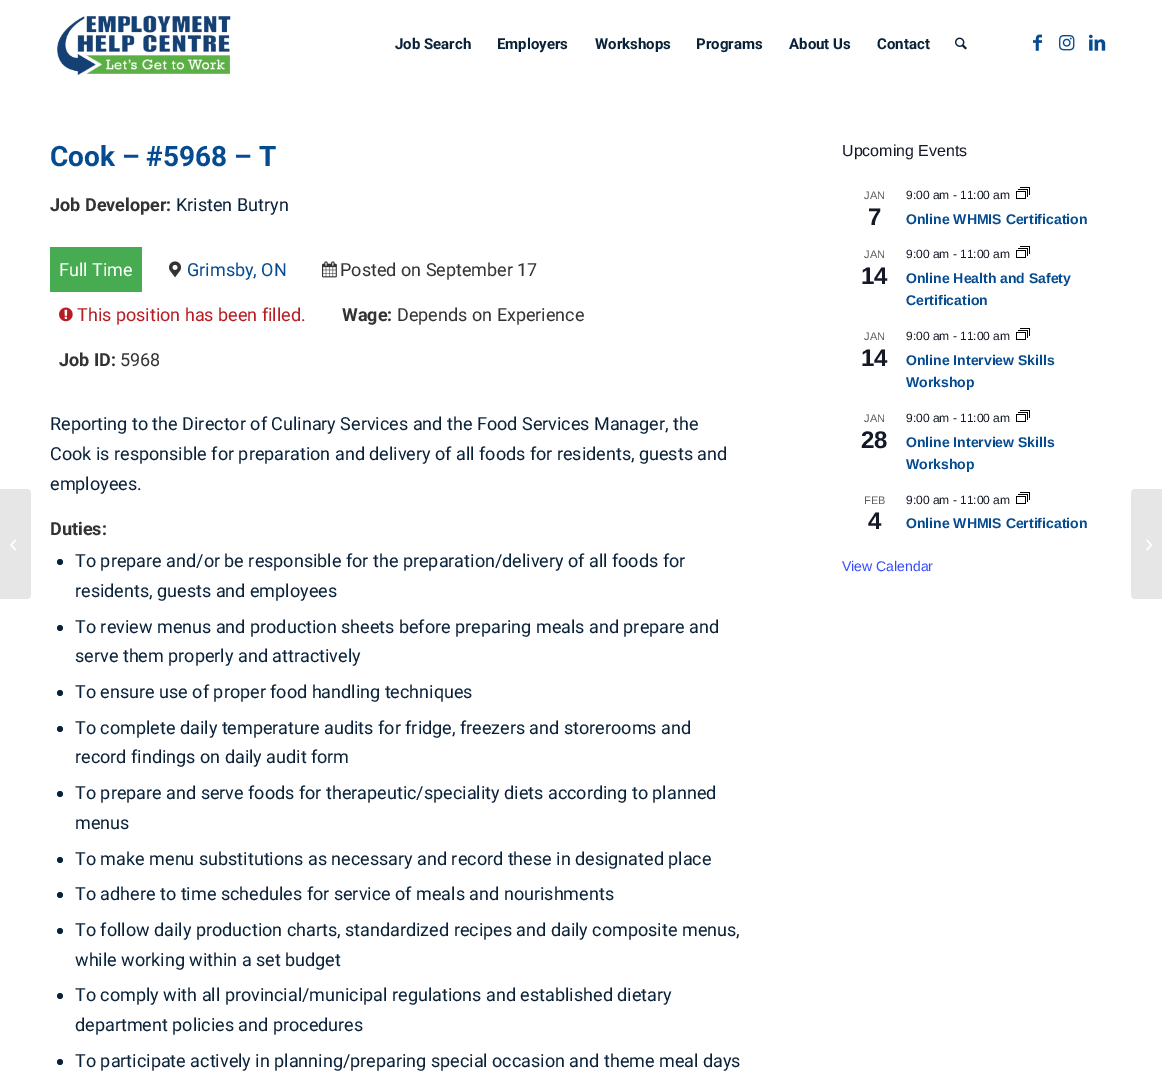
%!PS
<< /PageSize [1162 1087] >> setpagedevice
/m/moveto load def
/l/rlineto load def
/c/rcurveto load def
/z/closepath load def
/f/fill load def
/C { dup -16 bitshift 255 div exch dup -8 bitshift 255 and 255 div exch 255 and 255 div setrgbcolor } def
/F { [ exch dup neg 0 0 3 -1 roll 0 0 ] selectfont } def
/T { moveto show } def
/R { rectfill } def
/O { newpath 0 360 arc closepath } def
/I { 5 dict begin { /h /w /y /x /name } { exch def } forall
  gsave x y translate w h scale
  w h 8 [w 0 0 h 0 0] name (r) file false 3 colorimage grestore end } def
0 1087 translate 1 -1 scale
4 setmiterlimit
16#FFFFFF C
0 0 1162 1087 R
(1.rgb) 57 15 174 61 I
/Roboto-Bold 15 F
16#0A2239 C
(Job Search) 395 49 T
(Employers) 497 49 T
(Workshops) 595 49 T
(Programs) 696 49 T
(About Us) 789 49 T
(Contact) 877 49 T
(2.rgb) 955 37 12 13 I
(3.rgb) 1033 34 9 17 I
(4.rgb) 1059 35 16 16 I
(5.rgb) 1089 34 17 17 I
16#E6E6E6 C
0 489 m 27 0 l 2 0 4 2 4 4 c 0 102 l 0 2 -2 4 -4 4 c -27 0 l z f
(6.rgb) 10 539 6 12 I
/Roboto-Bold 28 F
16#054B91 C
(Cook – #5968 – T) 50 166 T
/Roboto-Bold 18 F
16#333333 C
(Job Developer:) 50 211 T
/Roboto-Regular 18 F
16#0A2239 C
(Kristen Butryn) 176 211 T
16#46AB51 C
50 247 92 45 R
16#FFFFFF C
(Full Time) 59 276 T
(7.rgb) 169 261 13 17 I
16#054B91 C
(Grimsby, ON) 187 276 T
(8.rgb) 322 261 15 17 I
16#333333 C
(Posted on September 17) 340 276 T
(9.rgb) 59 307 14 15 I
16#B81C23 C
(This position has been filled.) 77 321 T
/Roboto-Bold 18 F
16#333333 C
(Wage:) 342 321 T
/Roboto-Regular 18 F
(Depends on Experience) 397 321 T
/Roboto-Bold 18 F
(Job ID:) 59 366 T
/Roboto-Regular 18 F
(5968) 120 366 T
16#0A2239 C
(Reporting to the Director of Culinary Services and the Food Services Manager, the) 50 430 T
(Cook is responsible for preparation and delivery of all foods for residents, guests and) 50 460 T
(employees.) 50 490 T
/Roboto-Bold 18 F
16#333333 C
(Duties:) 50 535 T
16#0A2239 C
60 562 3 O f
/Roboto-Regular 18 F
(To prepare and/or be responsible for the preparation/delivery of all foods for) 75 567 T
(residents, guests and employees) 75 597 T
60 628 3 O f
(To review menus and production sheets before preparing meals and prepare and) 75 633 T
(serve them properly and attractively) 75 662 T
60 693 3 O f
(To ensure use of proper food handling techniques) 75 698 T
60 729 3 O f
(To complete daily temperature audits for fridge, freezers and storerooms and) 75 734 T
(record findings on daily audit form) 75 763 T
60 794 3 O f
(To prepare and serve foods for therapeutic/speciality diets according to planned) 75 799 T
(menus) 75 829 T
60 860 3 O f
(To make menu substitutions as necessary and record these in designated place) 75 865 T
60 895 3 O f
(To adhere to time schedules for service of meals and nourishments) 75 900 T
60 931 3 O f
(To follow daily production charts, standardized recipes and daily composite menus,) 75 936 T
(while working within a set budget) 75 966 T
60 996 3 O f
(To comply with all provincial/municipal regulations and established dietary) 75 1001 T
(department policies and procedures) 75 1031 T
60 1062 3 O f
(To participate actively in planning/preparing special occasion and theme meal days) 75 1067 T
/LiberationSans-Regular 16 F
16#141827 C
(Upcoming Events) 842 156 T
/LiberationSans-Regular 11 F
16#5D5D5D C
(JAN) 864 199 T
/LiberationSans-Bold 24 F
16#141827 C
(7) 868 225 T
/LiberationSans-Regular 12 F
(9:00 am - 11:00 am) 906 199 T
(10.rgb) 1016 187 14 12 I
/LiberationSans-Bold 14 F
16#054B91 C
(Online WHMIS Certification) 906 224 T
/LiberationSans-Regular 11 F
16#5D5D5D C
(JAN) 864 258 T
/LiberationSans-Bold 24 F
16#141827 C
(14) 861 284 T
/LiberationSans-Regular 12 F
(9:00 am - 11:00 am) 906 258 T
(10.rgb) 1016 246 14 12 I
/LiberationSans-Bold 14 F
16#054B91 C
(Online Health and Safety) 906 283 T
(Certification) 906 305 T
/LiberationSans-Regular 11 F
16#5D5D5D C
(JAN) 864 340 T
/LiberationSans-Bold 24 F
16#141827 C
(14) 861 366 T
/LiberationSans-Regular 12 F
(9:00 am - 11:00 am) 906 340 T
(10.rgb) 1016 328 14 12 I
/LiberationSans-Bold 14 F
16#054B91 C
(Online Interview Skills) 906 365 T
(Workshop) 906 387 T
/LiberationSans-Regular 11 F
16#5D5D5D C
(JAN) 864 422 T
/LiberationSans-Bold 24 F
16#141827 C
(28) 861 448 T
/LiberationSans-Regular 12 F
(9:00 am - 11:00 am) 906 422 T
(10.rgb) 1016 410 14 12 I
/LiberationSans-Bold 14 F
16#054B91 C
(Online Interview Skills) 906 447 T
(Workshop) 906 469 T
/LiberationSans-Regular 11 F
16#5D5D5D C
(FEB) 864 504 T
/LiberationSans-Bold 24 F
16#141827 C
(4) 868 529 T
/LiberationSans-Regular 12 F
(9:00 am - 11:00 am) 906 504 T
(10.rgb) 1016 492 14 12 I
/LiberationSans-Bold 14 F
16#054B91 C
(Online WHMIS Certification) 906 528 T
/LiberationSans-Regular 14 F
16#334AFF C
(View Calendar) 842 571 T
16#E6E6E6 C
1135 489 m 27 0 l 0 110 l -27 0 l -2 0 -4 -2 -4 -4 c 0 -102 l 0 -2 2 -4 4 -4 c z f
(11.rgb) 1146 539 6 12 I
showpage
